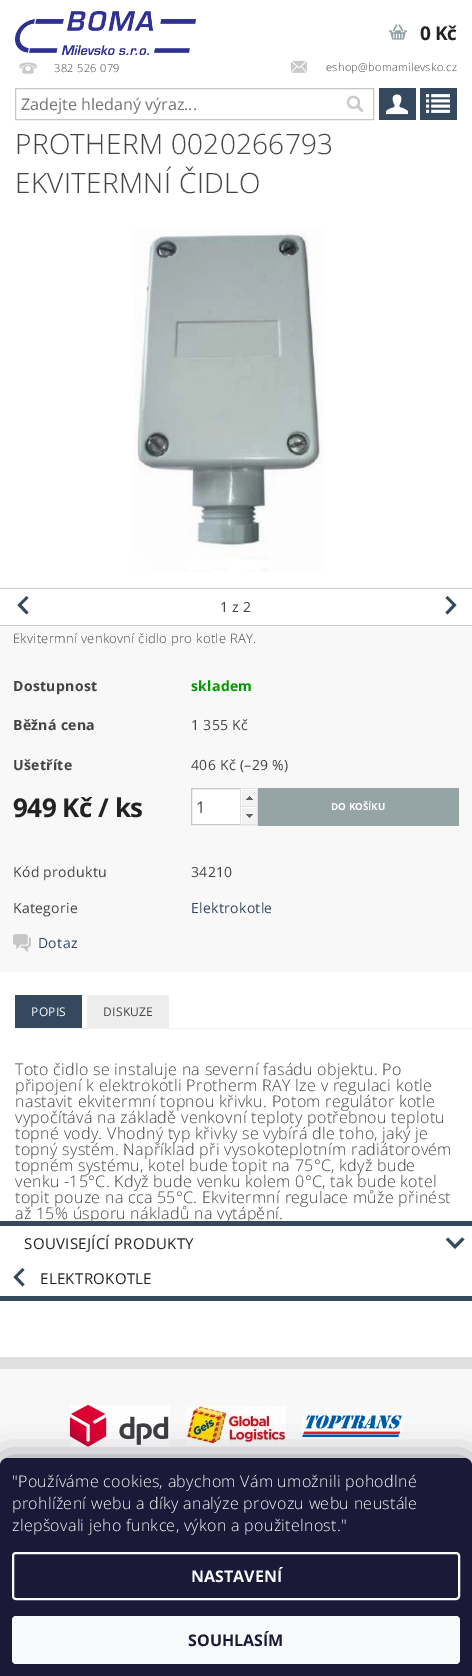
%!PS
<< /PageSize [472 1676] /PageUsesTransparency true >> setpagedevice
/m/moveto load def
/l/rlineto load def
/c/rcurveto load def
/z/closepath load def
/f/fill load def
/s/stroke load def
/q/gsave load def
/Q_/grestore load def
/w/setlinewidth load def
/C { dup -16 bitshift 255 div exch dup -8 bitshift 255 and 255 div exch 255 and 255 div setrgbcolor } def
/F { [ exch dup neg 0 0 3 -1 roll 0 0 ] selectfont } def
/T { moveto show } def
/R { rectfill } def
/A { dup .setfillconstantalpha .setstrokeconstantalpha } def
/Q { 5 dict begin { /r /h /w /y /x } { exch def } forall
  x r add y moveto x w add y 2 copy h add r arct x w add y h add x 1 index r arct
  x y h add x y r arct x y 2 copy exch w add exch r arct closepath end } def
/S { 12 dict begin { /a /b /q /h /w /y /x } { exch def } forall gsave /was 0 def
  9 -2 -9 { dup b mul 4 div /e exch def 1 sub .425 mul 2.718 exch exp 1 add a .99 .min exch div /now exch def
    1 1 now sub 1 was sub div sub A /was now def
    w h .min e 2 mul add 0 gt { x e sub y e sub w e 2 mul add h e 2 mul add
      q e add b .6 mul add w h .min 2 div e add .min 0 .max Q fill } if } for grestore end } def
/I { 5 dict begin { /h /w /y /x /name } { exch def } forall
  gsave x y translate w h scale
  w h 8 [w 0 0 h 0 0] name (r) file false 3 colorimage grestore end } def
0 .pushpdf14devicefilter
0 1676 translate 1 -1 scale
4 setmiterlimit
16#FFFFFF C
0 0 472 1676 R
(1.rgb) 15 11 181 44 I
(2.rgb) 389 24 18 16 I
/OpenSans-Bold 19 F
16#222222 C
420 40 m -.5 0 (0 Kč) ashow
16#34495E C
379 88 37 32 R
(3.rgb) 386 94 22 21 I
(4.rgb) 19 62 18 12 I
/OpenSans-Light 11 F
16#444444 C
54 72 m .32 0 (382 526 079) ashow
(5.rgb) 291 60 16 13 I
326 71 m .32 0 (eshop@bomamilevsko.cz) ashow
16#C6C6C6 C
15.5 88.5 358 31 rectstroke
/OpenSans-Regular 16.1 F
16#757575 C
(Zadejte hledaný výraz...) 21 110 T
(6.rgb) 347 95 16 17 I
16#34495E C
420 88 37 32 R
(7.rgb) 426 94 24 19 I
/OpenSans-Light 28 F
16#444444 C
15 154 m .32 0 (PROTHERM 0020266793) ashow
15 193 m .32 0 (EKVITERMNÍ ČIDLO) ashow
(8.rgb) 133 229 191 343 I
16#CBCBCB C
0 588 472 1 R
0 625 472 1 R
16#34495E C
26.5 596 m -9 9 l 9 9.5 l 2 -2 l -7 -7.5 l 7 -7 l z f
/OpenSans-Regular 14 F
16#444444 C
220 612 m .32 0 (1 z 2) ashow
16#34495E C
447.5 596 m 9 9 l -9 9.5 l -2 -2 l 7 -7.5 l -7 -7 l z f
16#F8F8F8 C
0 626 472 346 R
/OpenSans-Light 13 F
16#444444 C
13 643 m .32 0 (Ekvitermní venkovní čidlo pro kotle RAY.) ashow
/OpenSans-Bold 14 F
13 691 m .32 0 (Dostupnost) ashow
16#009901 C
191 691 m .32 0 (skladem) ashow
16#444444 C
13 730 m .32 0 (Běžná cena) ashow
/OpenSans-Regular 14 F
191 730 m .32 0 (1 355 Kč) ashow
/OpenSans-Bold 14 F
13 770 m .32 0 (Ušetříte) ashow
/OpenSans-Regular 14 F
191 770 m .32 0 (406 Kč \(–29 %\)) ashow
/OpenSans-Bold 26 F
16#222222 C
13 817 m -.5 0 (949 Kč / ks) ashow
16#FFFFFF C
191.5 788.5 m 66 0 l 0 36 l -66 0 l z q f Q_
16#C6C6C6 C
s
/OpenSans-Regular 16.1 F
16#444444 C
(1) 196 813 T
(9.rgb) 240 788 18 18 I
(10.rgb) 240 806 18 19 I
16#95A5A6 C
258 788 201 38 R
/OpenSans-Bold 9.75 F
16#FFFFFF C
(DO KOŠÍKU) 331 810 T
/OpenSans-Regular 14 F
16#444444 C
13 877 m .32 0 (Kód produktu) ashow
191 877 m .32 0 (34210) ashow
13 913 m .32 0 (Kategorie) ashow
16#34495E C
191 913 m .32 0 (Elektrokotle) ashow
(11.rgb) 13 934 18 19 I
38 948 m .32 0 (Dotaz) ashow
16#F2F2F2 C
15 1028 457 1 R
16#34495E C
15 995 67 33 R
/OpenSans-Regular 12 F
16#FFFFFF C
31 1016 m .32 0 (POPIS) ashow
16#EDEDED C
87 995 82 33 R
16#444444 C
103 1016 m .32 0 (DISKUZE) ashow
/OpenSans-Light 16 F
15 1075 m .32 0 (Toto čidlo se instaluje na severní fasádu objektu. Po) ashow
15 1091 m .32 0 (připojení k elektrokotli Protherm RAY lze v regulaci kotle) ashow
15 1107 m .32 0 (nastavit ekvitermní topnou křivku. Potom regulátor kotle) ashow
15 1123 m .32 0 (vypočítává na základě venkovní teploty potřebnou teplotu) ashow
15 1139 m .32 0 (topné vody. Vhodný typ křivky se vybírá dle toho, jaký je) ashow
15 1155 m .32 0 (topný systém. Například při vysokoteplotním radiátorovém) ashow
15 1171 m .32 0 (topném systému, kotel bude topit na 75°C, když bude) ashow
15 1187 m .32 0 (venku -15°C. Když bude venku kolem 0°C, tak bude kotel) ashow
15 1203 m .32 0 (topit pouze na cca 55°C. Ekvitermní regulace může přinést) ashow
16#34495E C
0 1221 472 5 R
16#444444 C
15 1219 m .32 0 (až 15% úsporu nákladů na vytápění.) ashow
16#34495E C
0 1296 472 5 R
/OpenSans-Regular 15 F
16#222222 C
24 1249 m .32 0 (SOUVISEJÍCÍ PRODUKTY) ashow
16#34495E C
446 1239.5 m 9 9.5 l 9.5 -9.5 l -2.5 -2 l -7 7 l -7 -7 l z f
22.5 1268 m -9 9 l 9 9.5 l 2 -2 l -7 -7.5 l 7 -7 l z f
16#222222 C
40 1284 m .32 0 (ELEKTROKOTLE) ashow
16#F8F8F8 C
0 1369 472 97 R
16#E0E0E0 C
0 1357 472 12 R
(12.rgb) 70 1405 100 42 I
(13.rgb) 186 1406 100 39 I
(14.rgb) 302 1415 100 22 I
16#1B1939 C
0 1458 472 218 8 15 .5 S
16#1A1937 C
8 1458 m 456 0 l 4.5 0 8 3.5 8 8 c 0 210 l -472 0 l 0 -210 l 0 -4.5 3.5 -8 8 -8 c z f
/OpenSans-Light 16 F
16#F8FAFB C
12 1487 m .32 0 ("Používáme cookies, abychom Vám umožnili pohodlné) ashow
12 1509 m .32 0 (prohlížení webu a díky analýze provozu webu neustále) ashow
12 1531 m .32 0 (zlepšovali jeho funkce, výkon a použitelnost.") ashow
2 w
13 1553 446 46 3 Q s
/OpenSans-Bold 16 F
(NASTAVENÍ) 191 1582 T
12 1616 448 48 4 Q f
16#1A1937 C
(SOUHLASÍM) 188 1646 T
.poppdf14devicefilter showpage
